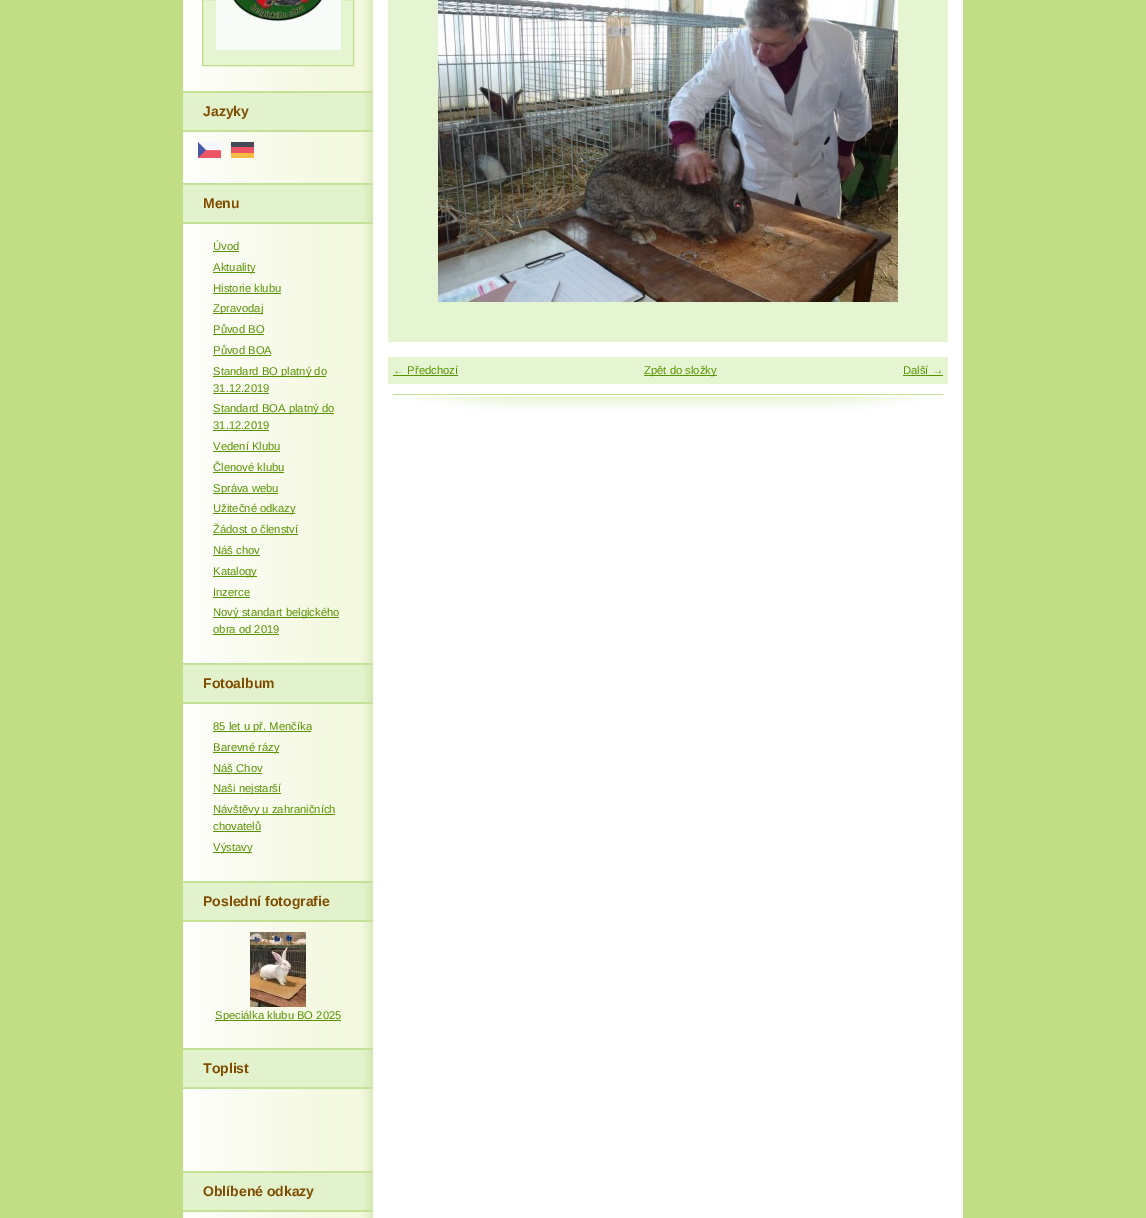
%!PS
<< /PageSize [1146 1218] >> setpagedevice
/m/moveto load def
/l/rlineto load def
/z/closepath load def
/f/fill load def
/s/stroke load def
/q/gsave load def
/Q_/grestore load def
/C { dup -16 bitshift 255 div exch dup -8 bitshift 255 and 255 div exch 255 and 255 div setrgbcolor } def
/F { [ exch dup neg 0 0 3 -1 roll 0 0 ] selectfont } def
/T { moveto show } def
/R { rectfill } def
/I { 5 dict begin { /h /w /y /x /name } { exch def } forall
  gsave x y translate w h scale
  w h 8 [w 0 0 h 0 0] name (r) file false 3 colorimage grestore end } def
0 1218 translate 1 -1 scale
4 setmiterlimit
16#C2DE85 C
0 0 1146 1218 R
16#FFFFFF C
373 0 590 1218 R
(1.rgb) 363 224 10 439 I
(2.rgb) 183 0 190 183 I
16#E5F4D1 C
202.5 -.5 m 151 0 l 0 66 l -151 0 l z q f Q_
16#C2DE85 C
s
(3.rgb) 216 0 125 50 I
(4.rgb) 183 91 190 41 I
/LiberationSans-Bold 14 F
16#814C00 C
(Jazyky) 203 116 T
(5.rgb) 364 93 9 37 I
(6.rgb) 198 142 23 16 I
(7.rgb) 231 142 23 16 I
(4.rgb) 183 183 190 41 I
(Menu) 203 208 T
(5.rgb) 364 185 9 37 I
(8.rgb) 183 224 180 439 I
/LiberationSans-Regular 11.25 F
16#589300 C
(Úvod) 213 250 T
213 251 26 1 R
213 272 42 1 R
(Aktuality) 213 271 T
(Historie klubu) 213 292 T
213 293 68 1 R
213 313 50 1 R
(Zpravodaj) 213 312 T
(Původ BO) 213 333 T
213 334 51 1 R
(Původ BOA) 213 354 T
213 355 58 1 R
213 376 113 1 R
(Standard BO platný do) 213 375 T
(31.12.2019) 213 392 T
213 393 56 1 R
213 413 121 1 R
(Standard BOA platný do) 213 412 T
(31.12.2019) 213 429 T
213 430 56 1 R
(Vedení Klubu) 213 450 T
213 451 67 1 R
(Členové klubu) 213 471 T
213 472 71 1 R
213 493 65 1 R
(Správa webu) 213 492 T
213 513 82 1 R
(Užitečné odkazy) 213 512 T
(Žádost o členství) 213 533 T
213 534 85 1 R
(Náš chov) 213 554 T
213 555 47 1 R
213 576 44 1 R
(Katalogy) 213 575 T
(Inzerce) 213 596 T
213 597 37 1 R
213 617 126 1 R
(Nový standart belgického) 213 616 T
(obra od 2019) 213 633 T
213 634 66 1 R
(9.rgb) 183 704 190 514 I
(4.rgb) 183 663 190 41 I
/LiberationSans-Bold 14 F
16#814C00 C
(Fotoalbum) 203 688 T
(5.rgb) 364 665 9 37 I
16#589300 C
213 731 98 1 R
/LiberationSans-Regular 11.25 F
(85 let u př. Menčíka) 213 730 T
213 752 66 1 R
(Barevné rázy) 213 751 T
(Náš Chov) 213 772 T
213 773 49 1 R
213 793 68 1 R
(Naši nejstarší) 213 792 T
213 814 122 1 R
(Návštěvy u zahraničních) 213 813 T
(chovatelů) 213 830 T
213 831 48 1 R
213 852 39 1 R
(Výstavy) 213 851 T
(4.rgb) 183 881 190 41 I
/LiberationSans-Bold 14 F
16#814C00 C
(Poslední fotografie) 203 906 T
(5.rgb) 364 883 9 37 I
(10.rgb) 250 932 56 75 I
16#589300 C
215 1020 126 1 R
/LiberationSans-Regular 11.25 F
(Speciálka klubu BO 2025) 215 1019 T
(4.rgb) 183 1048 190 41 I
/LiberationSans-Bold 14 F
16#814C00 C
(Toplist) 203 1073 T
(5.rgb) 364 1050 9 37 I
(4.rgb) 183 1171 190 41 I
(Oblíbené odkazy) 203 1196 T
(5.rgb) 364 1173 9 37 I
(11.rgb) 393 394 550 17 I
16#E5F4D1 C
388 0 560 342 R
(12.rgb) 438 0 460 302 I
388 357 560 27 R
/LiberationSans-Regular 11.25 F
16#589300 C
(← Předchozí) 393 374 T
393 375 65 1 R
644 375 73 1 R
(Zpět do složky) 644 374 T
(Další →) 903 374 T
903 375 40 1 R
showpage
